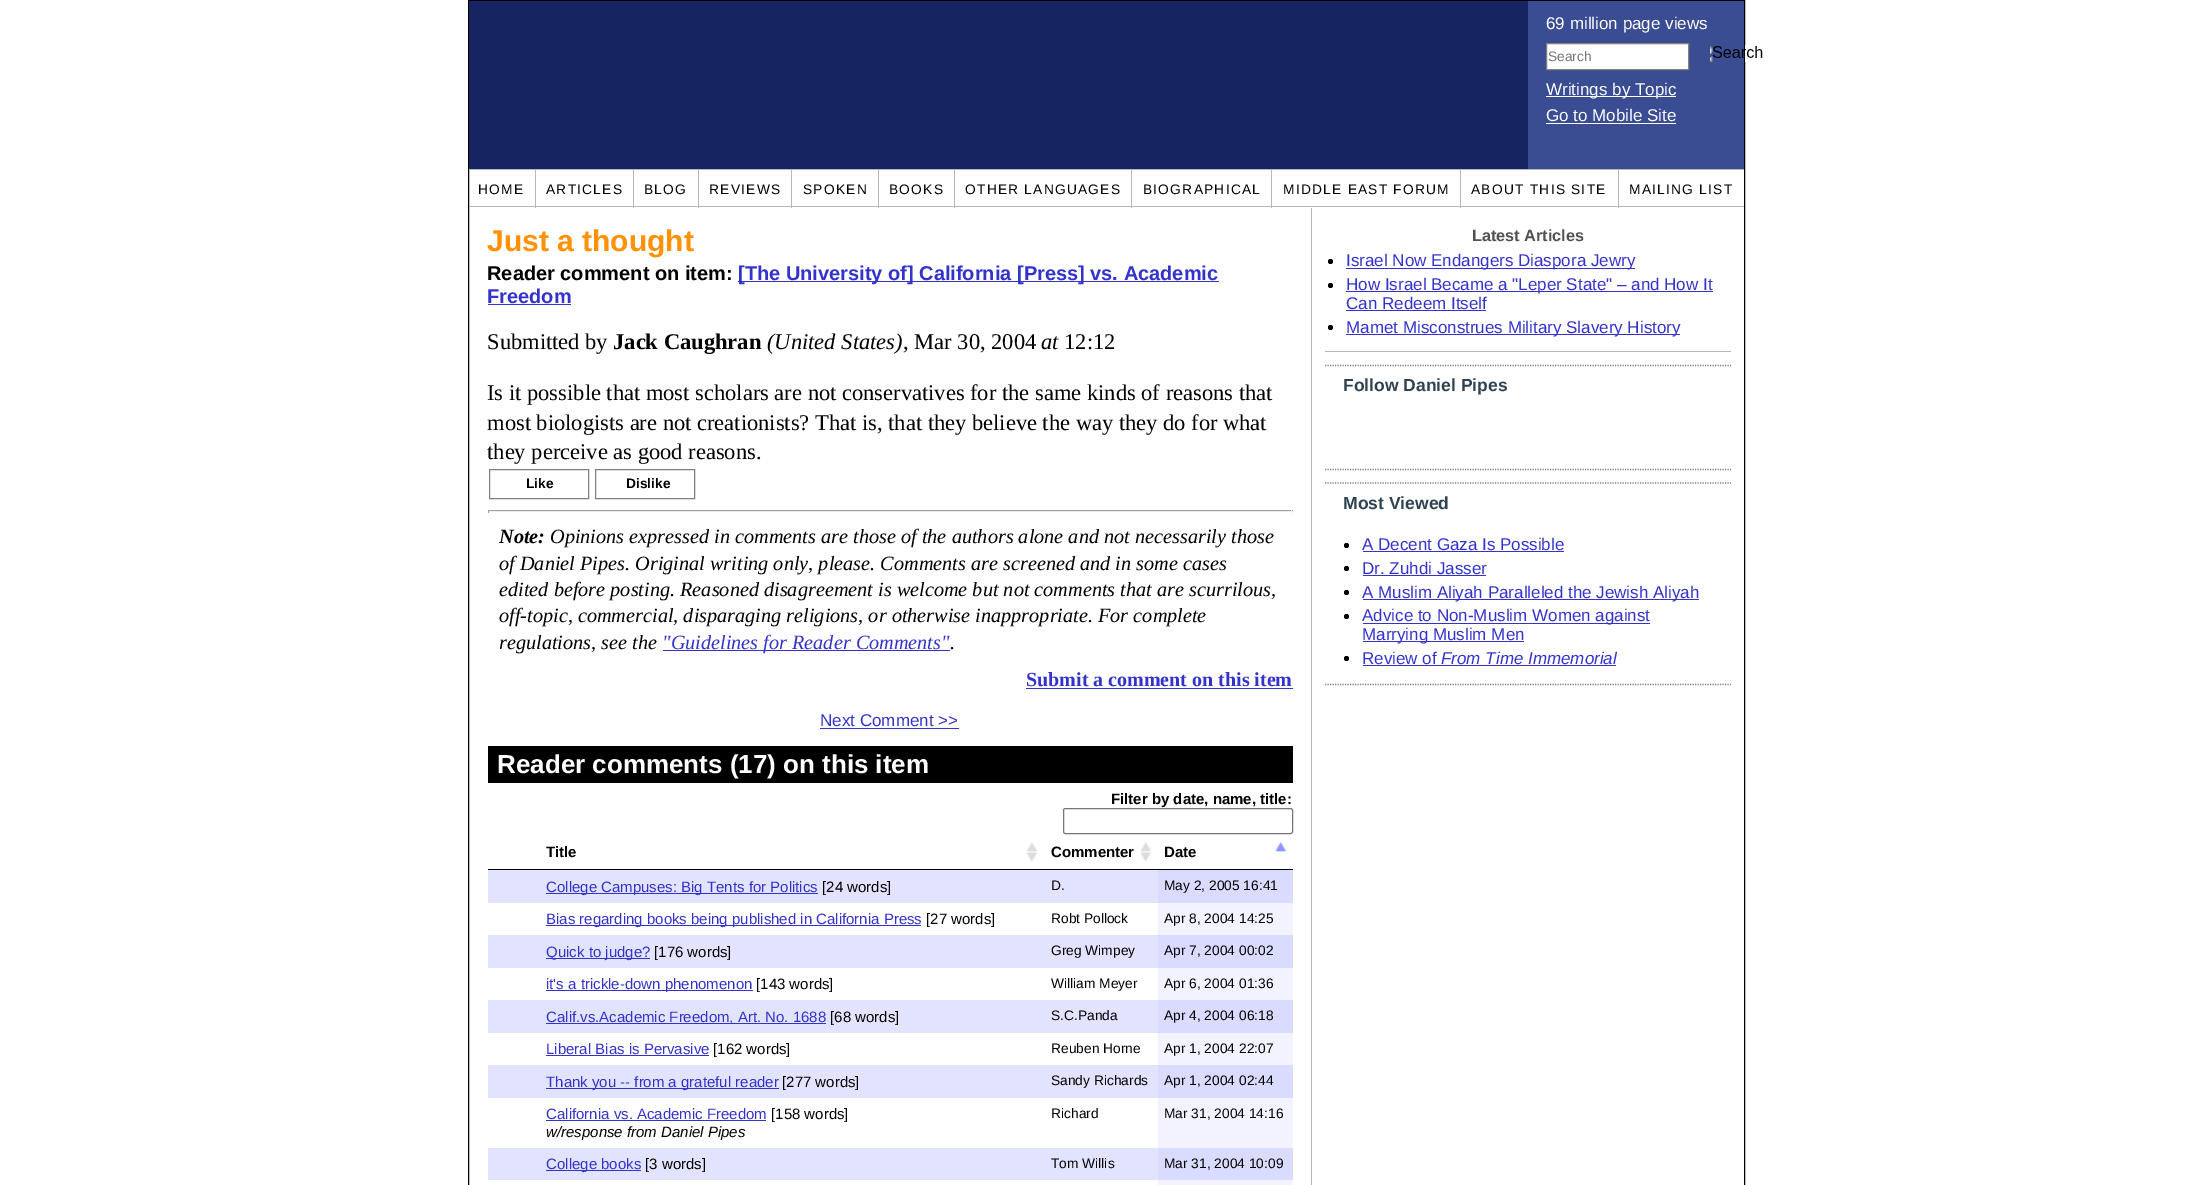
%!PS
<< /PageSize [2211 1185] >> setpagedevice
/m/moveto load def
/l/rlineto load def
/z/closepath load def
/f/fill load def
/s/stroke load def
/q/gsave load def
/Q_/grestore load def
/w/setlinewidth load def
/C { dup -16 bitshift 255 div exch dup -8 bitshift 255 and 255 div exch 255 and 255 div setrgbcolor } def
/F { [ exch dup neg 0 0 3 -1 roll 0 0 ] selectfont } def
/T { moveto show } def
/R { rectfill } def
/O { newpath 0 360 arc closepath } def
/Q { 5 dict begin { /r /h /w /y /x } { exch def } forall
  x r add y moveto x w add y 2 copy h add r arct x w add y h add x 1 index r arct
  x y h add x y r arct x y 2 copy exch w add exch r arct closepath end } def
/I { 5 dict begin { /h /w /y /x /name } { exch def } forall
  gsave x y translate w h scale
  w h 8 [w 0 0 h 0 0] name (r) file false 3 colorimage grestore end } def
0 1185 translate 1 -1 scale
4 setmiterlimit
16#FFFFFF C
0 0 2211 1185 R
16#000000 C
468.5 .5 1276 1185 rectstroke
16#162561 C
469 1 1059 168 R
16#3A4C92 C
1528 1 216 168 R
/LiberationSans-Regular 17 F
16#FFFFFF C
(69 million page views) 1546 29 T
1546.5 43.5 m 142 0 l 0 26 l -142 0 l z q f Q_
16#808080 C
s
/LiberationSans-Regular 13.75 F
16#757575 C
(Search) 1548 61 T
(1.rgb) 1710 45 53 17 I
16#FFFFFF C
1546 96 130 1 R
/LiberationSans-Regular 17 F
(Writings by Topic) 1546 95 T
(Go to Mobile Site) 1546 121 T
1546 123 130 1 R
16#B7B7B7 C
469 169 1275 1 R
535 169 1 39 R
469 206 67 1 R
/LiberationSans-Regular 13.75 F
16#000000 C
478 194 m 1.25 0 (HOME) ashow
16#B7B7B7 C
633 169 1 39 R
536 206 98 1 R
16#000000 C
546 194 m 1.25 0 (ARTICLES) ashow
16#B7B7B7 C
698 169 1 39 R
634 206 65 1 R
16#000000 C
644 194 m 1.25 0 (BLOG) ashow
16#B7B7B7 C
791 169 1 39 R
699 206 94 1 R
16#000000 C
709 194 m 1.25 0 (REVIEWS) ashow
16#B7B7B7 C
878 169 1 39 R
793 206 86 1 R
16#000000 C
803 194 m 1.25 0 (SPOKEN) ashow
16#B7B7B7 C
954 169 1 39 R
879 206 76 1 R
16#000000 C
889 194 m 1.25 0 (BOOKS) ashow
16#B7B7B7 C
1131 169 1 39 R
955 206 178 1 R
16#000000 C
965 194 m 1.25 0 (OTHER LANGUAGES) ashow
16#B7B7B7 C
1271 169 1 39 R
1133 206 140 1 R
16#000000 C
1143 194 m 1.25 0 (BIOGRAPHICAL) ashow
16#B7B7B7 C
1460 169 1 39 R
1273 206 188 1 R
16#000000 C
1283 194 m 1.25 0 (MIDDLE EAST FORUM) ashow
16#B7B7B7 C
1618 169 1 39 R
1461 206 283 1 R
16#000000 C
1471 194 m 1.25 0 (ABOUT THIS SITE) ashow
1629 194 m 1.25 0 (MAILING LIST) ashow
/LiberationSans-Bold 30 F
16#FE9104 C
(Just a thought) 487 251 T
/LiberationSans-Bold 20 F
16#000000 C
(Reader comment on item:) 487 280 T
16#3333CC C
738 281 481 1 R
([The University of] California [Press] vs. Academic) 738 280 T
(Freedom) 487 303 T
488 304 83 1 R
/LiberationSerif-Regular 22.5 F
16#000000 C
(Submitted by) 487 349 T
/LiberationSerif-Bold 22.5 F
(Jack Caughran) 613 349 T
/LiberationSerif-Italic 22.5 F
(\(United States\)) 767 349 T
/LiberationSerif-Regular 22.5 F
(, Mar 30, 2004) 903 349 T
/LiberationSerif-Italic 22.5 F
(at) 1041 349 T
/LiberationSerif-Regular 22.5 F
(12:12) 1064 349 T
(Is it possible that most scholars are not conservatives for the same kinds of reasons that) 487 400 T
(most biologists are not creationists? That is, that they believe the way they do for what) 487 430 T
(they perceive as good reasons.) 487 459 T
16#808080 C
489.5 469.5 99 29 rectstroke
/LiberationSans-Bold 13.75 F
16#000000 C
(Like) 526 488 T
16#808080 C
595.5 469.5 99 29 rectstroke
16#000000 C
(Dislike) 626 488 T
16#9F9F9F C
488 510 805 1 R
16#EEEEEE C
1291 510 1 3 R
488 511 805 1 R
16#9F9F9F C
488 510 1 3 R
/LiberationSerif-BoldItalic 20.25 F
16#000000 C
(Note:) 499 543 T
/LiberationSerif-Italic 20.25 F
(Opinions expressed in comments are those of the authors alone and not necessarily those) 550 543 T
(of Daniel Pipes. Original writing only, please. Comments are screened and in some cases) 499 570 T
(edited before posting. Reasoned disagreement is welcome but not comments that are scurrilous,) 499 596 T
(off-topic, commercial, disparaging religions, or otherwise inappropriate. For complete) 499 622 T
(regulations, see the) 499 649 T
16#3333CC C
663 650 287 1 R
("Guidelines for Reader Comments") 662 649 T
16#000000 C
(.) 950 649 T
/LiberationSerif-Bold 20 F
16#3333CC C
(Submit a comment on this item) 1026 686 T
1026 688 267 1 R
/LiberationSans-Regular 17 F
(Next Comment >>) 820 726 T
820 728 139 1 R
16#000000 C
488 746 805 37 R
/LiberationSans-Bold 26 F
16#FFFFFF C
(Reader comments \(17\) on this item) 497 773 T
/LiberationSans-Bold 15 F
16#000000 C
(Filter by date, name, title:) 1111 804 T
16#767676 C
1063.5 808.5 229 25 2 Q s
(2.rgb) 1026 842 12 20 I
16#000000 C
(Title) 546 857 T
(3.rgb) 1140 842 12 20 I
(Commenter) 1051 857 T
(4.rgb) 1275 842 12 10 I
(Date) 1164 857 T
488 869 805 1 R
16#E2E4FF C
488 870 670 33 R
16#3333CC C
546 893 272 1 R
/LiberationSans-Regular 15 F
(College Campuses: Big Tents for Politics) 546 892 T
16#000000 C
([24 words]) 822 892 T
/LiberationSans-Regular 13.75 F
(D.) 1051 890 T
16#DADCFF C
1158 870 135 33 R
16#000000 C
(May 2, 2005 16:41) 1164 890 T
16#3333CC C
546 925 375 1 R
/LiberationSans-Regular 15 F
(Bias regarding books being published in California Press) 546 924 T
16#000000 C
([27 words]) 926 924 T
/LiberationSans-Regular 13.75 F
(Robt Pollock) 1051 923 T
16#F2F3FF C
1158 903 135 32 R
16#000000 C
(Apr 8, 2004 14:25) 1164 923 T
16#E2E4FF C
488 935 670 33 R
16#3333CC C
546 958 104 1 R
/LiberationSans-Regular 15 F
(Quick to judge?) 546 957 T
16#000000 C
([176 words]) 654 957 T
/LiberationSans-Regular 13.75 F
(Greg Wimpey) 1051 955 T
16#DADCFF C
1158 935 135 33 R
16#000000 C
(Apr 7, 2004 00:02) 1164 955 T
16#3333CC C
546 990 207 1 R
/LiberationSans-Regular 15 F
(it's a trickle-down phenomenon) 546 989 T
16#000000 C
([143 words]) 756 989 T
/LiberationSans-Regular 13.75 F
(William Meyer) 1051 988 T
16#F2F3FF C
1158 968 135 32 R
16#000000 C
(Apr 6, 2004 01:36) 1164 988 T
16#E2E4FF C
488 1000 670 33 R
16#3333CC C
546 1023 280 1 R
/LiberationSans-Regular 15 F
(Calif.vs.Academic Freedom, Art. No. 1688) 546 1022 T
16#000000 C
([68 words]) 830 1022 T
/LiberationSans-Regular 13.75 F
(S.C.Panda) 1051 1020 T
16#DADCFF C
1158 1000 135 33 R
16#000000 C
(Apr 4, 2004 06:18) 1164 1020 T
/LiberationSans-Regular 15 F
16#3333CC C
(Liberal Bias is Pervasive) 546 1054 T
546 1055 163 1 R
16#000000 C
([162 words]) 713 1054 T
/LiberationSans-Regular 13.75 F
(Reuben Horne) 1051 1053 T
16#F2F3FF C
1158 1033 135 32 R
16#000000 C
(Apr 1, 2004 22:07) 1164 1053 T
16#E2E4FF C
488 1065 670 33 R
16#3333CC C
546 1088 233 1 R
/LiberationSans-Regular 15 F
(Thank you -- from a grateful reader) 546 1087 T
16#000000 C
([277 words]) 782 1087 T
/LiberationSans-Regular 13.75 F
(Sandy Richards) 1051 1085 T
16#DADCFF C
1158 1065 135 33 R
16#000000 C
(Apr 1, 2004 02:44) 1164 1085 T
/LiberationSans-Regular 15 F
16#3333CC C
(California vs. Academic Freedom) 546 1119 T
546 1120 220 1 R
16#000000 C
([158 words]) 771 1119 T
/LiberationSans-Italic 15 F
(w/response from Daniel Pipes) 546 1137 T
/LiberationSans-Regular 13.75 F
(Richard) 1051 1118 T
16#F2F3FF C
1158 1098 135 50 R
16#000000 C
(Mar 31, 2004 14:16) 1164 1118 T
16#E2E4FF C
488 1148 670 32 R
16#3333CC C
546 1170 95 1 R
/LiberationSans-Regular 15 F
(College books) 546 1169 T
16#000000 C
([3 words]) 645 1169 T
/LiberationSans-Regular 13.75 F
(Tom Willis) 1051 1168 T
16#DADCFF C
1158 1148 135 32 R
16#000000 C
(Mar 31, 2004 10:09) 1164 1168 T
16#F2F3FF C
1158 1180 135 5 R
16#B7B7B7 C
1311 208 1 977 R
1325 351 406 1 R
/LiberationSans-Bold 16.25 F
16#525050 C
(Latest Articles) 1472 241 T
16#000000 C
1330.5 261.5 2.5 O f
16#3333CC C
1346 268 289 1 R
/LiberationSans-Regular 17 F
(Israel Now Endangers Diaspora Jewry) 1346 266 T
16#000000 C
1330.5 285.5 2.5 O f
16#3333CC C
1346 291 367 1 R
(How Israel Became a "Leper State" – and How It) 1346 290 T
(Can Redeem Itself) 1346 309 T
1346 310 140 1 R
16#000000 C
1330.5 327.5 2.5 O f
16#3333CC C
1346 334 334 1 R
(Mamet Misconstrues Military Slavery History) 1346 333 T
16#808080 C
1.2 w
[1.25 1.25] 0 setdash
1325 365.5 m 406 0 l s
1325 469.5 m 406 0 l s
/LiberationSans-Bold 17.5 F
16#2F4251 C
(Follow Daniel Pipes) 1343 391 T
16#808080 C
1325 483 m 406 0 l s
1325 684.5 m 406 0 l s
16#2F4251 C
(Most Viewed) 1343 509 T
16#000000 C
1346.5 545.5 2.5 O f
/LiberationSans-Regular 17 F
16#3333CC C
(A Decent Gaza Is Possible) 1362 550 T
1363 551 201 1 R
16#000000 C
1346.5 568.5 2.5 O f
16#3333CC C
(Dr. Zuhdi Jasser) 1362 574 T
1363 575 123 1 R
16#000000 C
1346.5 592.5 2.5 O f
16#3333CC C
1363 599 336 1 R
(A Muslim Aliyah Paralleled the Jewish Aliyah) 1362 598 T
16#000000 C
1346.5 616.5 2.5 O f
16#3333CC C
1363 623 287 1 R
(Advice to Non-Muslim Women against) 1362 621 T
1363 641 161 1 R
(Marrying Muslim Men) 1362 640 T
16#000000 C
1346.5 658.5 2.5 O f
16#3333CC C
(Review of) 1362 664 T
1363 665 253 1 R
/LiberationSans-Italic 17 F
(From Time Immemorial) 1441 664 T
showpage
